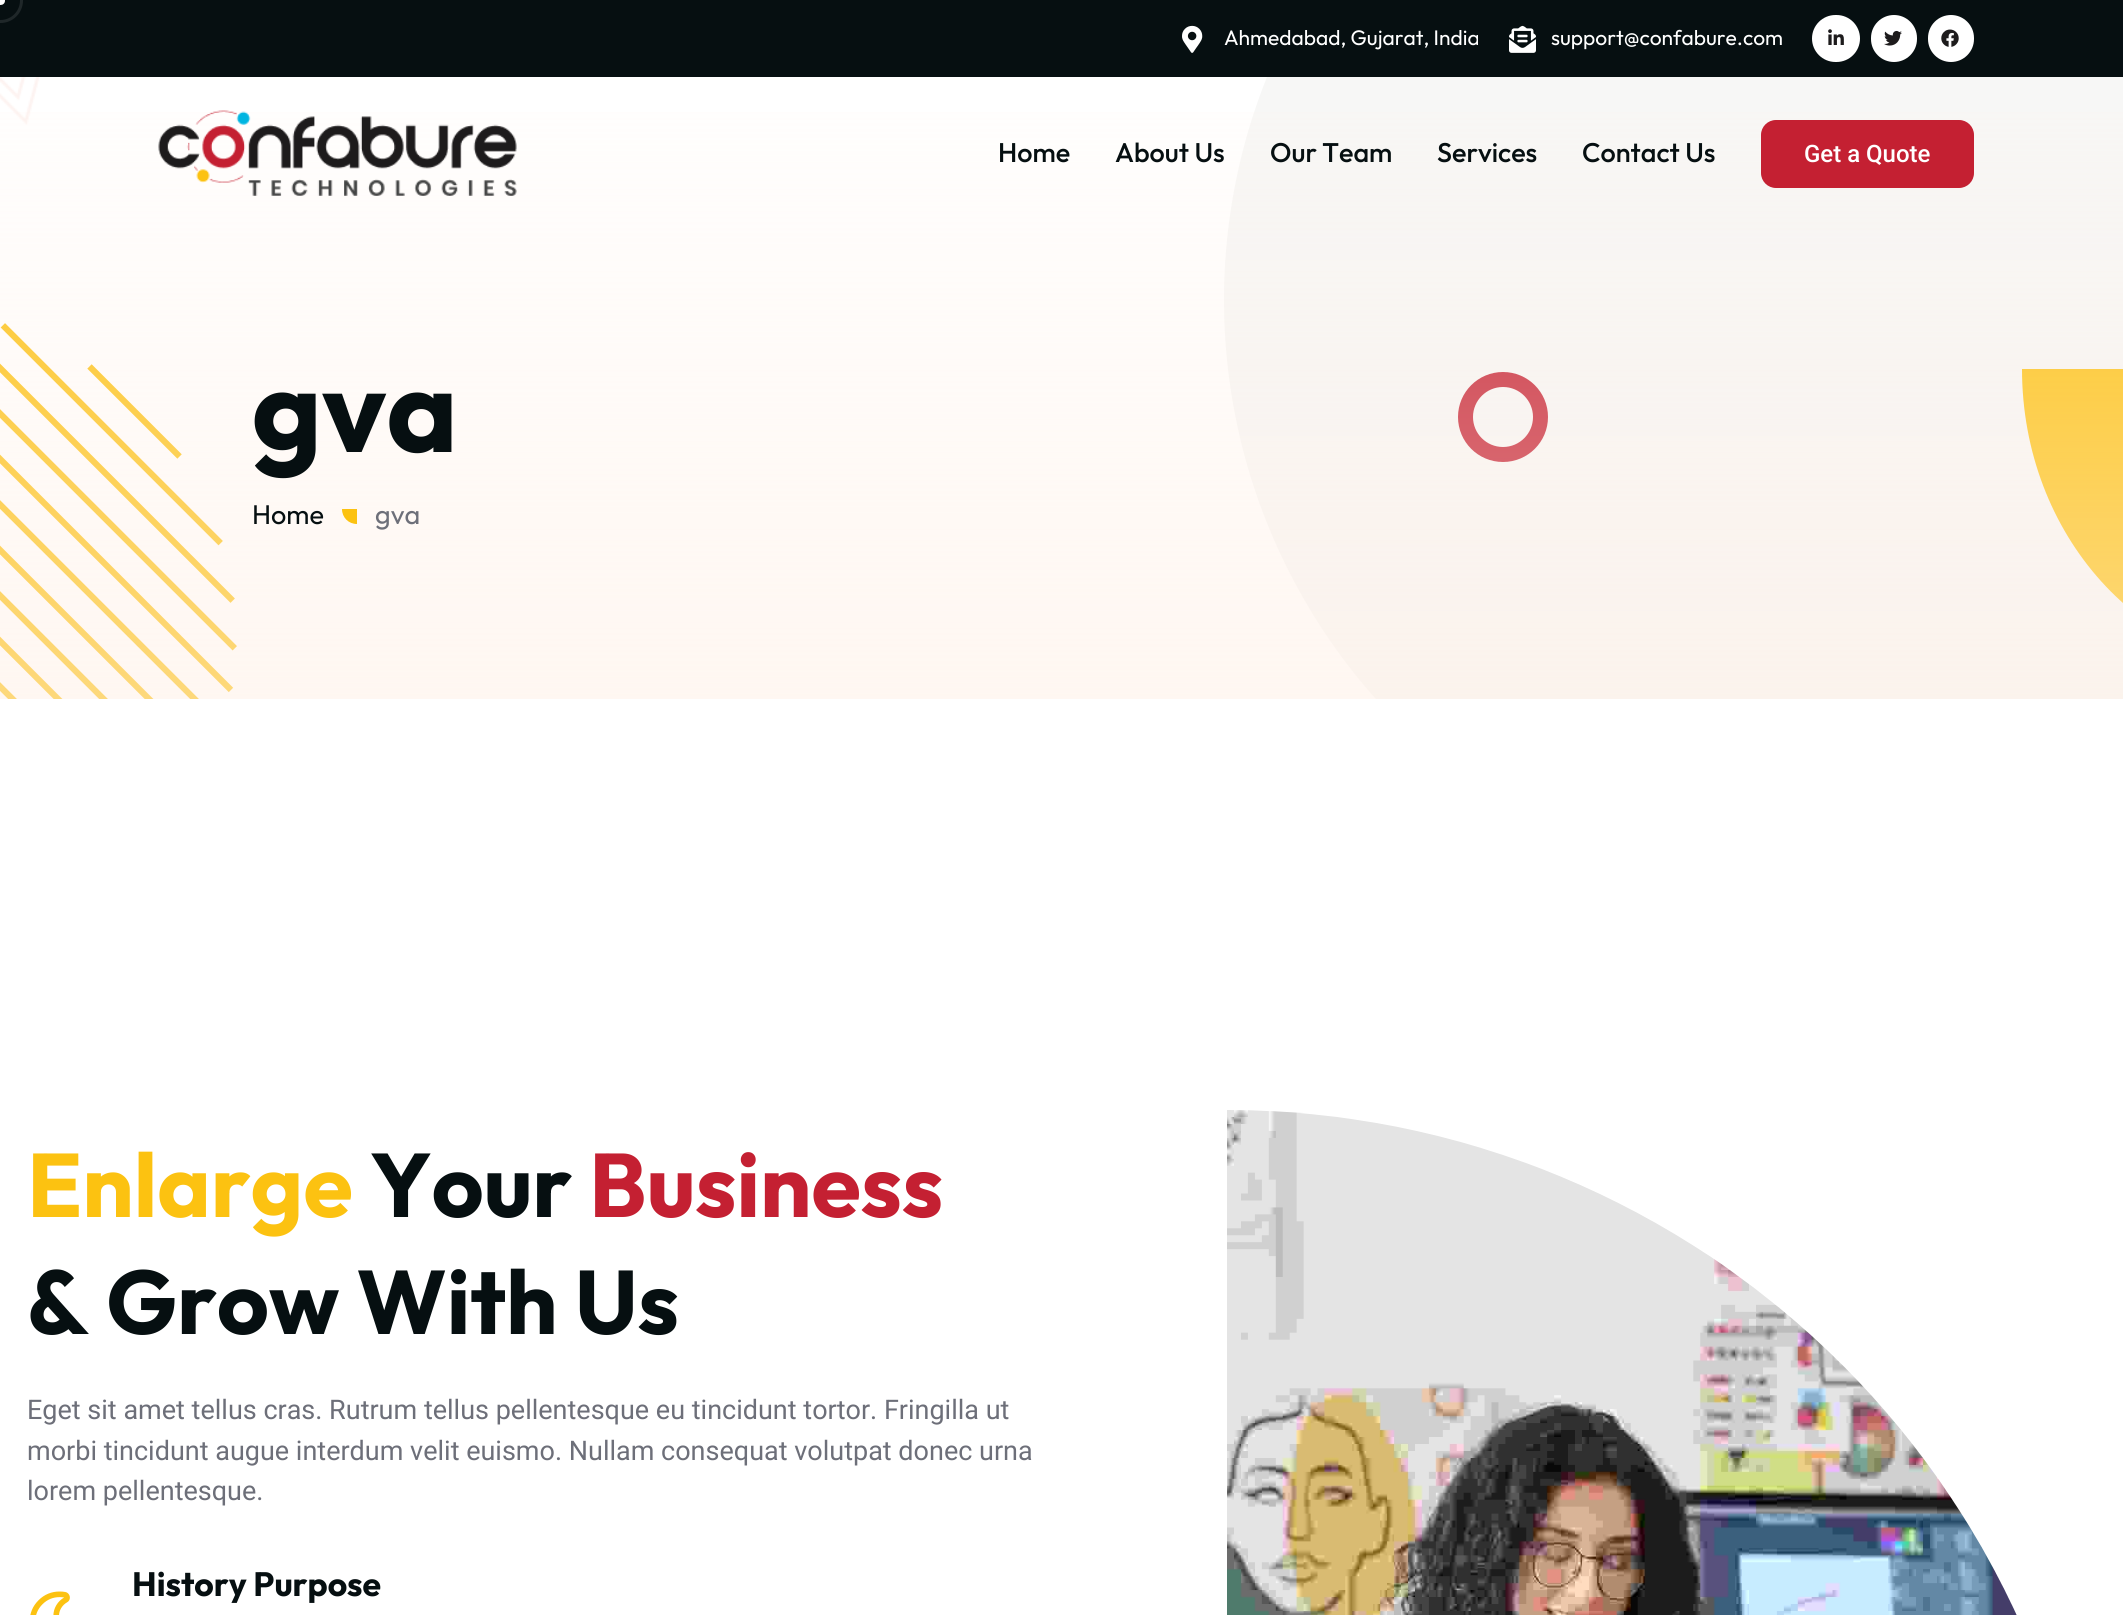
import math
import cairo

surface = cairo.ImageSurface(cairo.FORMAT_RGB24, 2123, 1615)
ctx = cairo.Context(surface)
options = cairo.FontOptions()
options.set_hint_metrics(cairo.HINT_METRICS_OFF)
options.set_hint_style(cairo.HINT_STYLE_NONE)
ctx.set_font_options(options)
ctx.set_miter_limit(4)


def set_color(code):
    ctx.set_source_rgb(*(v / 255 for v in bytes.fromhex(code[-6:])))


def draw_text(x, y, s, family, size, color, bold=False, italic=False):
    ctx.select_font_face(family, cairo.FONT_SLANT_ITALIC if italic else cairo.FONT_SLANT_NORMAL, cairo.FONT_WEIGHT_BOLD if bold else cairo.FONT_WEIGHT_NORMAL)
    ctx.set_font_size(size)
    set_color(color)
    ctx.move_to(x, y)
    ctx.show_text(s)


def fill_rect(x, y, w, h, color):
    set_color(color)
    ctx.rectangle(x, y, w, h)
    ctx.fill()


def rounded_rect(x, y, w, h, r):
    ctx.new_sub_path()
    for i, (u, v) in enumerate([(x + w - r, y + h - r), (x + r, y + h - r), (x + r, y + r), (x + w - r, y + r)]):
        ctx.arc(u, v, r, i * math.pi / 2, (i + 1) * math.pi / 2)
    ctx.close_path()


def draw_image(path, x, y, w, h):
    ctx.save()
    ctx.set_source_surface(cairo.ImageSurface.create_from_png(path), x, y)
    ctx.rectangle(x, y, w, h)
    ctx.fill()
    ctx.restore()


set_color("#ffffff")
ctx.paint()
ctx.save()
ctx.rectangle(0, 0, 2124, 699)
ctx.clip()
set_color("#f7f7f6")
ctx.arc(1824, 300, 600, 0, 2 * math.pi)
ctx.fill()
ctx.restore()
fill_rect(0, 0, 2123, 77, "#060f11")
ctx.arc(0.5, 0.5, 21, 0, 2 * math.pi)
set_color("#1f2729")
ctx.set_line_width(3)
ctx.stroke()
set_color("#ffffff")
ctx.arc(0.5, 0.5, 4.5, 0, 2 * math.pi)
ctx.fill()
draw_image("assets/img1.png", 1182, 25, 21, 28)
draw_text(1224, 45, "Ahmedabad, Gujarat, India", "Outfit", 21, "#ffffff")
draw_image("assets/img2.png", 1509, 25, 27, 28)
draw_text(1551, 45, "support@confabure.com", "Outfit", 21, "#ffffff")
rounded_rect(1812, 15, 48, 47, 23.5)
ctx.fill()
draw_image("assets/img3.png", 1828, 29, 16, 16)
rounded_rect(1871, 15, 46, 47, 23)
ctx.fill()
draw_image("assets/img4.png", 1884, 30, 18, 16)
rounded_rect(1928, 15, 46, 47, 23)
ctx.fill()
draw_image("assets/img5.png", 1941, 29, 18, 18)
draw_image("assets/img7.png", 0, 77, 40, 48)
draw_image("assets/img8.png", 0, 323, 237, 376)
ctx.arc(1503, 417, 37.5, 0, 2 * math.pi)
set_color("#c42032")
ctx.set_line_width(15)
ctx.stroke()
set_color("#fcc211")
ctx.new_path()
ctx.move_to(2022, 369)
ctx.line_to(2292, 369)
ctx.line_to(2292, 669)
ctx.curve_to(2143, 669, 2022, 535, 2022, 369)
ctx.close_path()
ctx.fill()
gradient = cairo.LinearGradient(1062, 0, 1062, 699)
gradient.add_color_stop_rgba(0, 1, 0.937, 0.894, 0)
gradient.add_color_stop_rgba(1, 1, 0.937, 0.894, 0.5)
ctx.set_source(gradient)
ctx.rectangle(0, 112, 2123, 587)
ctx.fill()
draw_image("assets/img6.png", 158, 110, 359, 86)
draw_text(998, 162, "Home", "Outfit Medium", 27, "#060f11")
draw_text(1115, 162, "About Us", "Outfit Medium", 27, "#060f11")
draw_text(1270, 162, "Our Team", "Outfit Medium", 27, "#060f11")
draw_text(1437, 162, "Services", "Outfit Medium", 27, "#060f11")
draw_text(1582, 162, "Contact Us", "Outfit Medium", 27, "#060f11")
set_color("#c42032")
rounded_rect(1761, 120, 213, 68, 15)
ctx.fill()
draw_text(1804, 162, "Get a Quote", "Roboto Medium", 24, "#ffffff")
draw_text(252, 452, "gva", "Outfit", 120, "#060f11", bold=True)
draw_text(252, 524, "Home", "Outfit", 27, "#060f11")
set_color("#fcc211")
ctx.new_path()
ctx.move_to(342, 509)
ctx.line_to(357, 509)
ctx.line_to(357, 524)
ctx.curve_to(348.5, 524, 342, 517.5, 342, 509)
ctx.close_path()
ctx.fill()
draw_text(375, 524, "gva", "Outfit", 27, "#6d6f79")
draw_text(27, 1217, "Enlarge", "Outfit", 90, "#fcc211", bold=True)
draw_text(370, 1217, "Your", "Outfit", 90, "#060f11", bold=True)
draw_text(589, 1217, "Business", "Outfit", 90, "#c42032", bold=True)
draw_text(27, 1334, "& Grow With Us", "Outfit", 90, "#060f11", bold=True)
draw_text(27, 1419, "Eget sit amet tellus cras. Rutrum tellus pellentesque eu tincidunt tortor. Fringilla ut", "Roboto", 27, "#6d6f79")
draw_text(27, 1460, "morbi tincidunt augue interdum velit euismo. Nullam consequat volutpat donec urna", "Roboto", 27, "#6d6f79")
draw_text(27, 1500, "lorem pellentesque.", "Roboto", 27, "#6d6f79")
draw_image("assets/img9.png", 30, 1591, 40, 24)
draw_text(132, 1596, "History Purpose", "Outfit", 33.75, "#060f11", bold=True)
draw_image("assets/img10.png", 1227, 1110, 790, 505)
surface.write_to_png("output.png")
